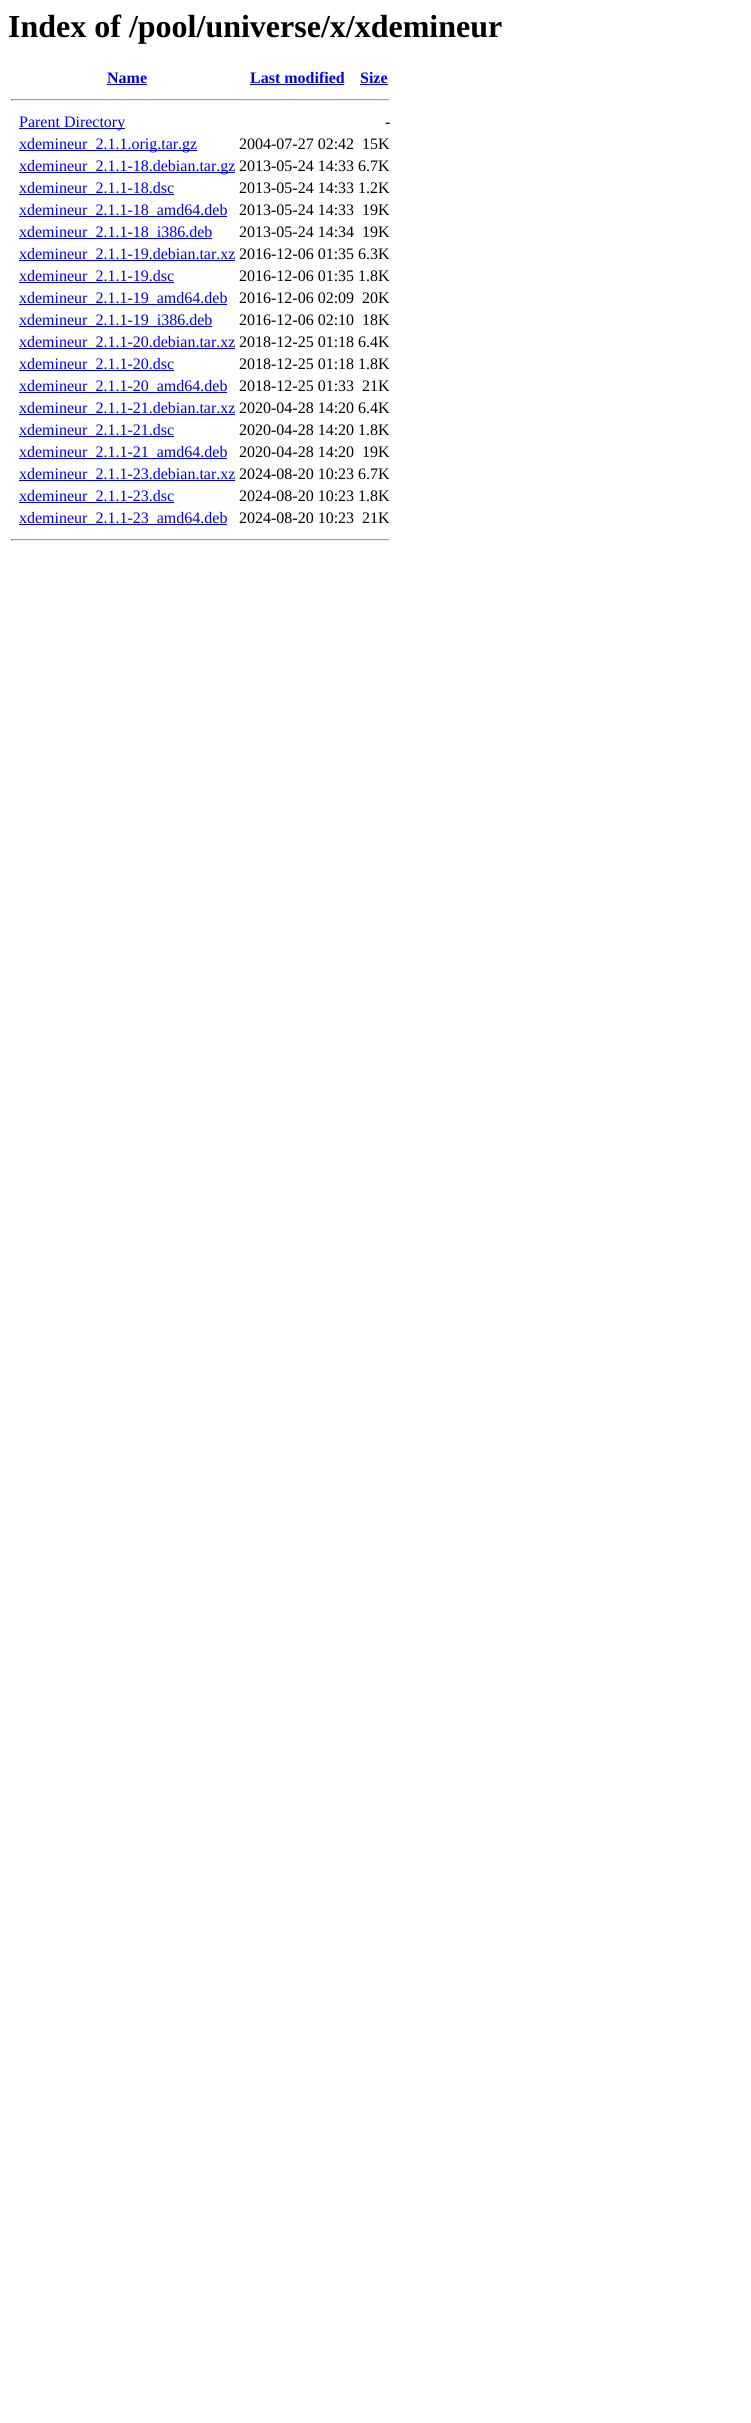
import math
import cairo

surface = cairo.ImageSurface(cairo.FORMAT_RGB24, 751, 2423)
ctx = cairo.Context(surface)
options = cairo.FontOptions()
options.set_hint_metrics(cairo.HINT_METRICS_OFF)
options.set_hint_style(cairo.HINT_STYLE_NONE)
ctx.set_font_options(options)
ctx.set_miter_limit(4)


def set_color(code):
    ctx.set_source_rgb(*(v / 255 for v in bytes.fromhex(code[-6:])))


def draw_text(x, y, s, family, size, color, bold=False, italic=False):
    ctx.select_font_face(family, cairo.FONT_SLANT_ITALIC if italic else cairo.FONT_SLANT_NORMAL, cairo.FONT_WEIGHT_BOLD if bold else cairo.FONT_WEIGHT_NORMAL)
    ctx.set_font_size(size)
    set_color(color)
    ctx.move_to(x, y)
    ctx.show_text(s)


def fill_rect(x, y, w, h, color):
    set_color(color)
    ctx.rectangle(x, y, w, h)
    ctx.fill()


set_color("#ffffff")
ctx.paint()
draw_text(8, 37, "Index of /pool/universe/x/xdemineur", "Liberation Serif", 32, "#000000", bold=True)
draw_text(107, 83, "Name", "Liberation Serif", 16, "#0000ee", bold=True)
fill_rect(107, 84, 40, 1, "#0000ee")
draw_text(250, 83, "Last modified", "Liberation Serif", 16, "#0000ee", bold=True)
fill_rect(250, 84, 94, 1, "#0000ee")
draw_text(360, 83, "Size", "Liberation Serif", 16, "#0000ee", bold=True)
fill_rect(360, 84, 28, 1, "#0000ee")
fill_rect(11, 99, 379, 1, "#9f9f9f")
fill_rect(389, 99, 1, 2, "#eeeeee")
fill_rect(11, 100, 379, 1, "#eeeeee")
fill_rect(11, 99, 1, 2, "#9f9f9f")
fill_rect(19, 128, 106, 1, "#0000ee")
draw_text(19, 127, "Parent Directory", "Liberation Serif", 16, "#0000ee")
draw_text(385, 127, "-", "Liberation Serif", 16, "#000000")
fill_rect(19, 150, 178, 1, "#0000ee")
draw_text(19, 149, "xdemineur_2.1.1.orig.tar.gz", "Liberation Serif", 16, "#0000ee")
draw_text(239, 149, "2004-07-27 02:42", "Liberation Serif", 16, "#000000")
draw_text(362, 149, "15K", "Liberation Serif", 16, "#000000")
fill_rect(19, 172, 216, 1, "#0000ee")
draw_text(19, 171, "xdemineur_2.1.1-18.debian.tar.gz", "Liberation Serif", 16, "#0000ee")
draw_text(239, 171, "2013-05-24 14:33 6.7K", "Liberation Serif", 16, "#000000")
fill_rect(19, 194, 155, 1, "#0000ee")
draw_text(19, 193, "xdemineur_2.1.1-18.dsc", "Liberation Serif", 16, "#0000ee")
draw_text(239, 193, "2013-05-24 14:33 1.2K", "Liberation Serif", 16, "#000000")
fill_rect(19, 216, 208, 1, "#0000ee")
draw_text(19, 215, "xdemineur_2.1.1-18_amd64.deb", "Liberation Serif", 16, "#0000ee")
draw_text(239, 215, "2013-05-24 14:33", "Liberation Serif", 16, "#000000")
draw_text(362, 215, "19K", "Liberation Serif", 16, "#000000")
fill_rect(19, 238, 193, 1, "#0000ee")
draw_text(19, 237, "xdemineur_2.1.1-18_i386.deb", "Liberation Serif", 16, "#0000ee")
draw_text(239, 237, "2013-05-24 14:34", "Liberation Serif", 16, "#000000")
draw_text(362, 237, "19K", "Liberation Serif", 16, "#000000")
fill_rect(19, 260, 216, 1, "#0000ee")
draw_text(19, 259, "xdemineur_2.1.1-19.debian.tar.xz", "Liberation Serif", 16, "#0000ee")
draw_text(239, 259, "2016-12-06 01:35 6.3K", "Liberation Serif", 16, "#000000")
fill_rect(19, 282, 155, 1, "#0000ee")
draw_text(19, 281, "xdemineur_2.1.1-19.dsc", "Liberation Serif", 16, "#0000ee")
draw_text(239, 281, "2016-12-06 01:35 1.8K", "Liberation Serif", 16, "#000000")
fill_rect(19, 304, 208, 1, "#0000ee")
draw_text(19, 303, "xdemineur_2.1.1-19_amd64.deb", "Liberation Serif", 16, "#0000ee")
draw_text(239, 303, "2016-12-06 02:09", "Liberation Serif", 16, "#000000")
draw_text(362, 303, "20K", "Liberation Serif", 16, "#000000")
fill_rect(19, 326, 193, 1, "#0000ee")
draw_text(19, 325, "xdemineur_2.1.1-19_i386.deb", "Liberation Serif", 16, "#0000ee")
draw_text(239, 325, "2016-12-06 02:10", "Liberation Serif", 16, "#000000")
draw_text(362, 325, "18K", "Liberation Serif", 16, "#000000")
fill_rect(19, 348, 216, 1, "#0000ee")
draw_text(19, 347, "xdemineur_2.1.1-20.debian.tar.xz", "Liberation Serif", 16, "#0000ee")
draw_text(239, 347, "2018-12-25 01:18 6.4K", "Liberation Serif", 16, "#000000")
fill_rect(19, 370, 155, 1, "#0000ee")
draw_text(19, 369, "xdemineur_2.1.1-20.dsc", "Liberation Serif", 16, "#0000ee")
draw_text(239, 369, "2018-12-25 01:18 1.8K", "Liberation Serif", 16, "#000000")
fill_rect(19, 392, 208, 1, "#0000ee")
draw_text(19, 391, "xdemineur_2.1.1-20_amd64.deb", "Liberation Serif", 16, "#0000ee")
draw_text(239, 391, "2018-12-25 01:33", "Liberation Serif", 16, "#000000")
draw_text(362, 391, "21K", "Liberation Serif", 16, "#000000")
fill_rect(19, 414, 216, 1, "#0000ee")
draw_text(19, 413, "xdemineur_2.1.1-21.debian.tar.xz", "Liberation Serif", 16, "#0000ee")
draw_text(239, 413, "2020-04-28 14:20 6.4K", "Liberation Serif", 16, "#000000")
fill_rect(19, 436, 155, 1, "#0000ee")
draw_text(19, 435, "xdemineur_2.1.1-21.dsc", "Liberation Serif", 16, "#0000ee")
draw_text(239, 435, "2020-04-28 14:20 1.8K", "Liberation Serif", 16, "#000000")
fill_rect(19, 458, 208, 1, "#0000ee")
draw_text(19, 457, "xdemineur_2.1.1-21_amd64.deb", "Liberation Serif", 16, "#0000ee")
draw_text(239, 457, "2020-04-28 14:20", "Liberation Serif", 16, "#000000")
draw_text(362, 457, "19K", "Liberation Serif", 16, "#000000")
fill_rect(19, 480, 216, 1, "#0000ee")
draw_text(19, 479, "xdemineur_2.1.1-23.debian.tar.xz", "Liberation Serif", 16, "#0000ee")
draw_text(239, 479, "2024-08-20 10:23 6.7K", "Liberation Serif", 16, "#000000")
fill_rect(19, 502, 155, 1, "#0000ee")
draw_text(19, 501, "xdemineur_2.1.1-23.dsc", "Liberation Serif", 16, "#0000ee")
draw_text(239, 501, "2024-08-20 10:23 1.8K", "Liberation Serif", 16, "#000000")
fill_rect(19, 524, 208, 1, "#0000ee")
draw_text(19, 523, "xdemineur_2.1.1-23_amd64.deb", "Liberation Serif", 16, "#0000ee")
draw_text(239, 523, "2024-08-20 10:23", "Liberation Serif", 16, "#000000")
draw_text(362, 523, "21K", "Liberation Serif", 16, "#000000")
fill_rect(11, 539, 379, 1, "#9f9f9f")
fill_rect(389, 539, 1, 2, "#eeeeee")
fill_rect(11, 540, 379, 1, "#eeeeee")
fill_rect(11, 539, 1, 2, "#9f9f9f")
surface.write_to_png("output.png")
